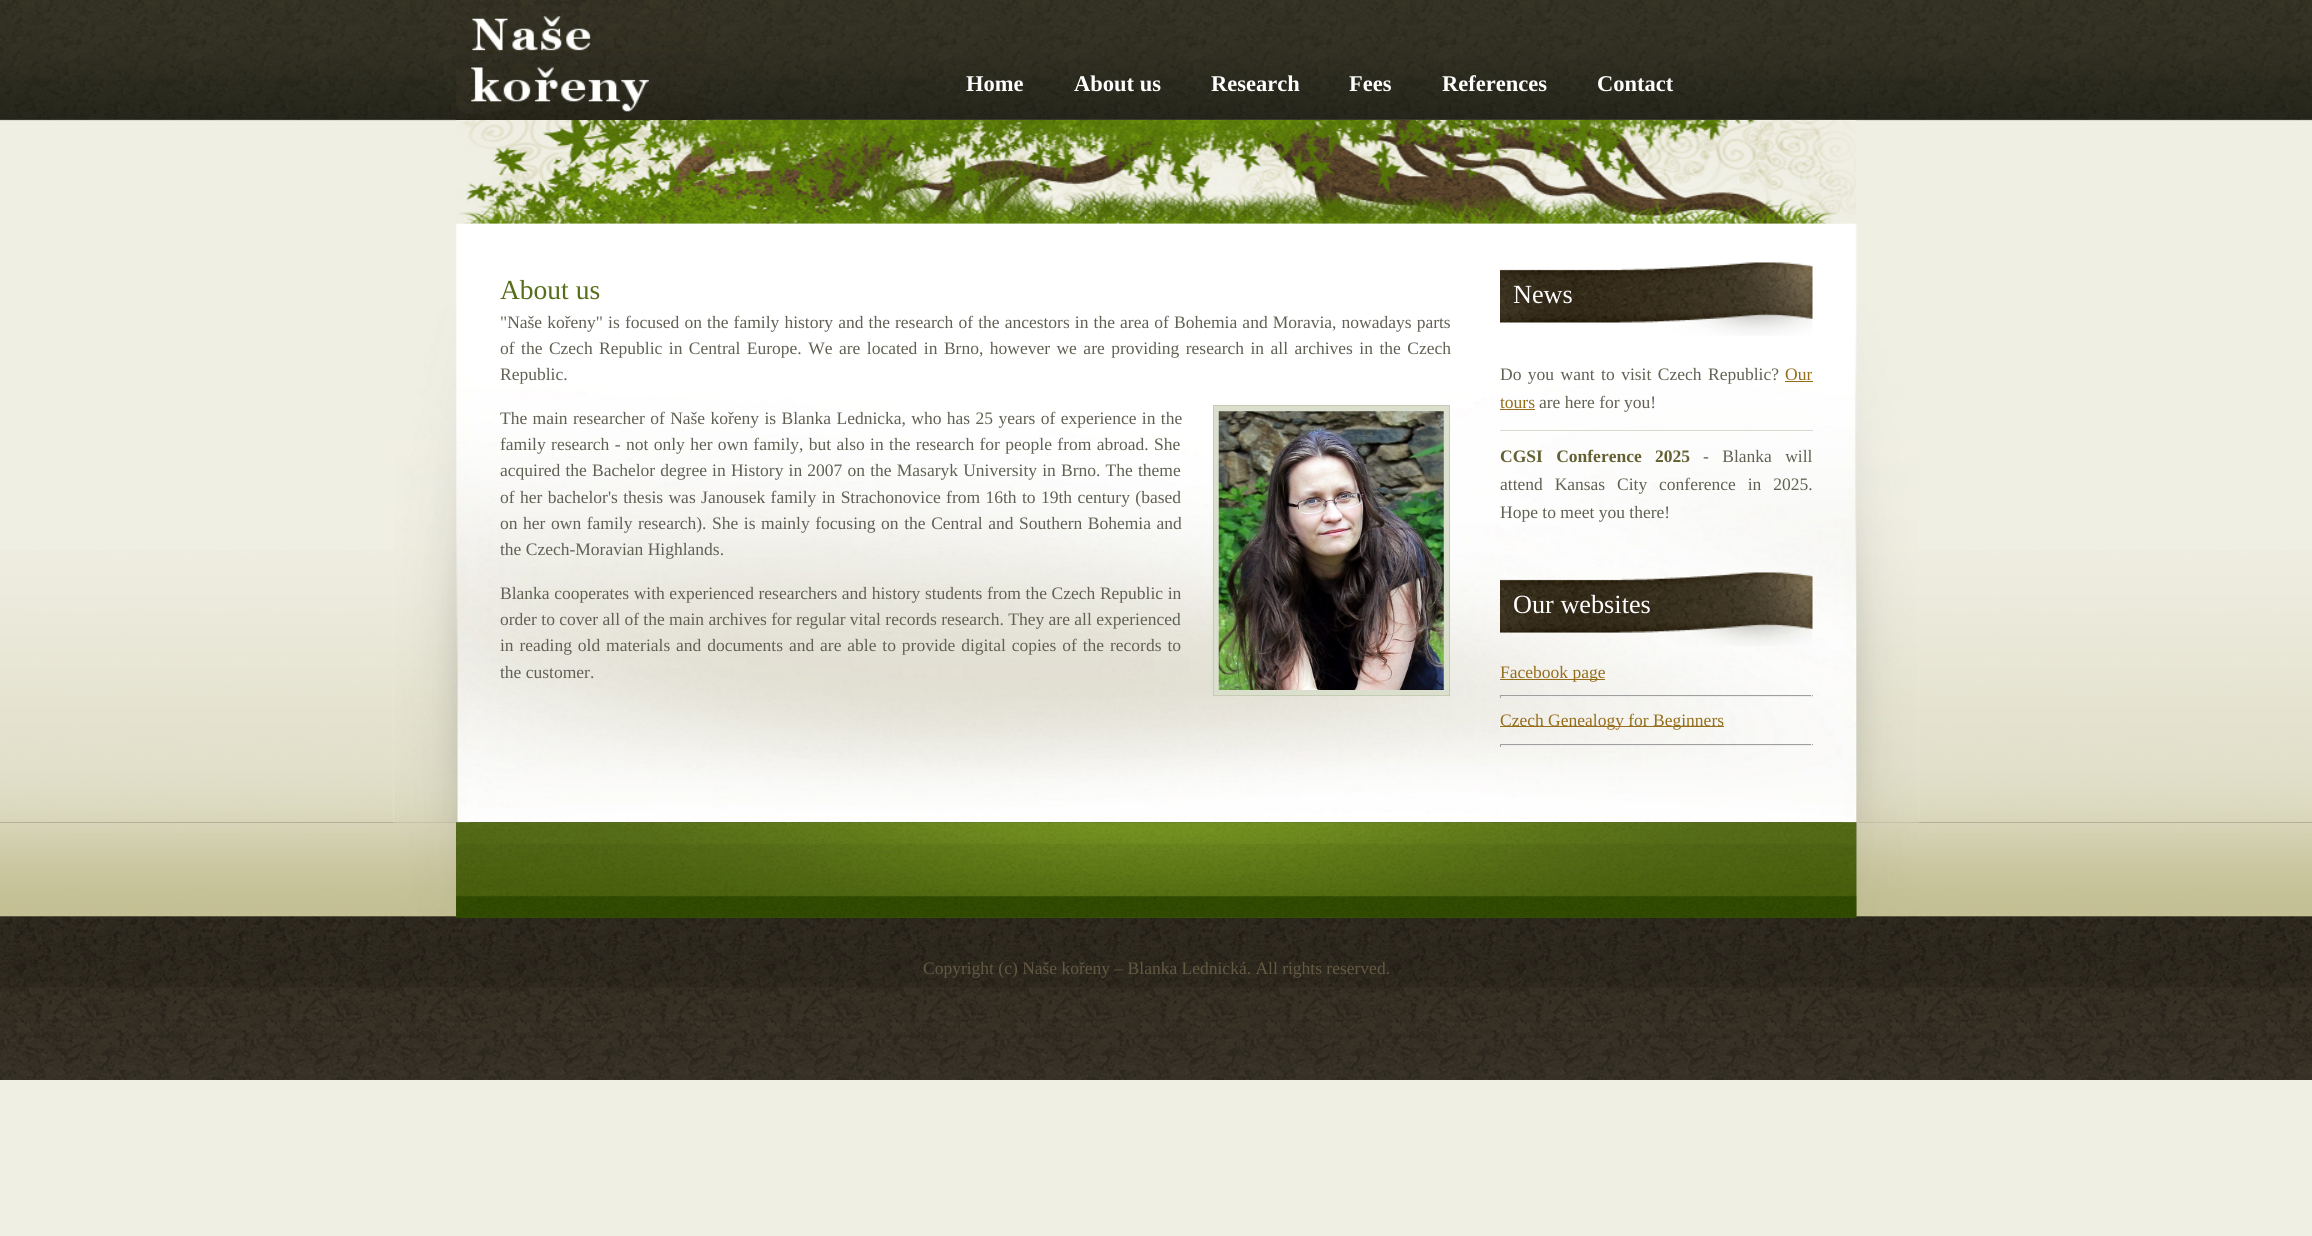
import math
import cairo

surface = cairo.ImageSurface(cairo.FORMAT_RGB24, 2312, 1236)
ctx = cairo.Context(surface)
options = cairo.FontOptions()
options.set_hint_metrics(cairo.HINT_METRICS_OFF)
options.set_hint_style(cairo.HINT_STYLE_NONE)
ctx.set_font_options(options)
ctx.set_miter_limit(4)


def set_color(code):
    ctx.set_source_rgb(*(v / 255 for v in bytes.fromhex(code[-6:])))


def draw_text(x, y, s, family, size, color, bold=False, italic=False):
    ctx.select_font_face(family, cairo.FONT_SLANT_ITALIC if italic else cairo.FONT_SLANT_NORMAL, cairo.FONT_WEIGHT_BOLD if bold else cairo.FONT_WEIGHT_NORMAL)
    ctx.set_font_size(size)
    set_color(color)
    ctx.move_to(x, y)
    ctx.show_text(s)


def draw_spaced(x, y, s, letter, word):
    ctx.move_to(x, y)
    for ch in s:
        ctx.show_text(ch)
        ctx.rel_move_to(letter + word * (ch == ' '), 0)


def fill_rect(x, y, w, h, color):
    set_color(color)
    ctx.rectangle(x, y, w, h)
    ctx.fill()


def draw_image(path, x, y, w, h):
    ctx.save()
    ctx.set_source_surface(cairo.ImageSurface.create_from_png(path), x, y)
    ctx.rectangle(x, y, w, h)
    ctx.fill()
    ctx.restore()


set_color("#f0efe4")
ctx.paint()
draw_image("assets/img1.png", 0, 0, 2312, 121)
draw_image("assets/img2.png", 0, 550, 2312, 273)
draw_image("assets/img3.png", 456, 0, 251, 120)
draw_text(966, 91, "Home", "Liberation Serif", 22.5, "#ffffff", bold=True)
draw_text(1074, 91, "About us", "Liberation Serif", 22.5, "#ffffff", bold=True)
draw_text(1211, 91, "Research", "Liberation Serif", 22.5, "#ffffff", bold=True)
draw_text(1349, 91, "Fees", "Liberation Serif", 22.5, "#ffffff", bold=True)
draw_text(1442, 91, "References", "Liberation Serif", 22.5, "#ffffff", bold=True)
draw_text(1597, 91, "Contact", "Liberation Serif", 22.5, "#ffffff", bold=True)
draw_image("assets/img4.png", 456, 120, 1401, 104)
draw_image("assets/img5.png", 393, 223, 1526, 600)
draw_image("assets/img6.png", 394, 305, 1525, 518)
draw_text(500, 299, "About us", "Liberation Serif", 27.5, "#566d19")
ctx.set_font_size(17.5)
set_color("#616053")
draw_spaced(500, 328, "\"Naše kořeny\" is focused on the family history and the research of the ancestors in the area of Bohemia and Moravia, nowadays parts", 0, 0.75)
draw_spaced(500, 354, "of the Czech Republic in Central Europe. We are located in Brno, however we are providing research in all archives in the Czech", 0, 2.1)
draw_text(500, 380, "Republic.", "Liberation Serif", 17.5, "#616053")
draw_spaced(500, 424, "The main researcher of Naše kořeny is Blanka Lednicka, who has 25 years of experience in the", 0, 1)
set_color("#dadfce")
ctx.rectangle(1213.5, 405.5, 236, 290)
ctx.fill_preserve()
set_color("#c5ccb3")
ctx.set_line_width(1)
ctx.stroke()
draw_image("assets/img7.png", 1218, 411, 226, 279)
set_color("#616053")
draw_spaced(500, 450, "family research - not only her own family, but also in the research for people from abroad. She", 0, 1)
draw_spaced(500, 476, "acquired the Bachelor degree in History in 2007 on the Masaryk University in Brno. The theme", 0, 0.8)
draw_spaced(500, 503, "of her bachelor's thesis was Janousek family in Strachonovice from 16th to 19th century (based", 0, 1)
draw_spaced(500, 529, "on her own family research). She is mainly focusing on the Central and Southern Bohemia and", 0, 1.2)
draw_text(500, 555, "the Czech-Moravian Highlands.", "Liberation Serif", 17.5, "#616053")
draw_spaced(500, 599, "Blanka cooperates with experienced researchers and history students from the Czech Republic in", 0, 0.25)
draw_text(500, 625, "order to cover all of the main archives for regular vital records research. They are all experienced", "Liberation Serif", 17.5, "#616053")
draw_spaced(500, 651, "in reading old materials and documents and are able to provide digital copies of the records to", 0, 1.5)
draw_text(500, 678, "the customer.", "Liberation Serif", 17.5, "#616053")
draw_image("assets/img8.png", 1500, 262, 313, 74)
draw_text(1513, 303, "News", "Liberation Serif", 26.25, "#ffffff")
fill_rect(1500, 430, 313, 1, "#d8dbca")
ctx.set_font_size(17.5)
set_color("#616053")
draw_spaced(1500, 380, "Do you want to visit Czech Republic?", 0, 2.1)
draw_text(1785, 380, "Our", "Liberation Serif", 17.5, "#956e1c")
fill_rect(1785, 381, 28, 1, "#956e1c")
draw_text(1500, 408, "tours", "Liberation Serif", 17.5, "#956e1c")
fill_rect(1500, 409, 35, 1, "#956e1c")
draw_text(1539, 408, "are here for you!", "Liberation Serif", 17.5, "#616053")
ctx.select_font_face("Liberation Serif", cairo.FONT_SLANT_NORMAL, cairo.FONT_WEIGHT_BOLD)
set_color("#646033")
draw_spaced(1500, 462, "CGSI Conference 2025", 0, 9)
ctx.select_font_face("Liberation Serif")
set_color("#616053")
draw_spaced(1703, 462, "- Blanka will", 0, 9)
draw_spaced(1500, 490, "attend Kansas City conference in 2025.", 0, 7.5)
draw_text(1500, 518, "Hope to meet you there!", "Liberation Serif", 17.5, "#616053")
draw_image("assets/img9.png", 1500, 572, 313, 74)
draw_text(1513, 613, "Our websites", "Liberation Serif", 26.25, "#ffffff")
fill_rect(1500, 679, 105, 1, "#956e1c")
draw_text(1500, 678, "Facebook page", "Liberation Serif", 17.5, "#956e1c")
fill_rect(1500, 695, 313, 1, "#9f9f9f")
fill_rect(1811, 695, 1, 3, "#eeeeee")
fill_rect(1500, 696, 313, 1, "#eeeeee")
fill_rect(1500, 695, 1, 3, "#9f9f9f")
fill_rect(1500, 726, 224, 1, "#956e1c")
draw_text(1500, 726, "Czech Genealogy for Beginners", "Liberation Serif", 17.5, "#956e1c")
fill_rect(1500, 744, 313, 1, "#9f9f9f")
fill_rect(1811, 744, 1, 3, "#eeeeee")
fill_rect(1500, 745, 313, 1, "#eeeeee")
fill_rect(1500, 744, 1, 3, "#9f9f9f")
draw_image("assets/img10.png", 0, 822, 2312, 1)
draw_image("assets/img11.png", 0, 822, 2312, 258)
draw_image("assets/img12.png", 393, 822, 1526, 96)
draw_image("assets/img13.png", 456, 822, 1401, 96)
draw_image("assets/img14.png", 456, 822, 1401, 96)
draw_image("assets/img15.png", 456, 896, 1401, 22)
draw_text(923, 974, "Copyright (c) Naše kořeny – Blanka Lednická. All rights reserved.", "Liberation Serif", 17.5, "#635842")
surface.write_to_png("output.png")
